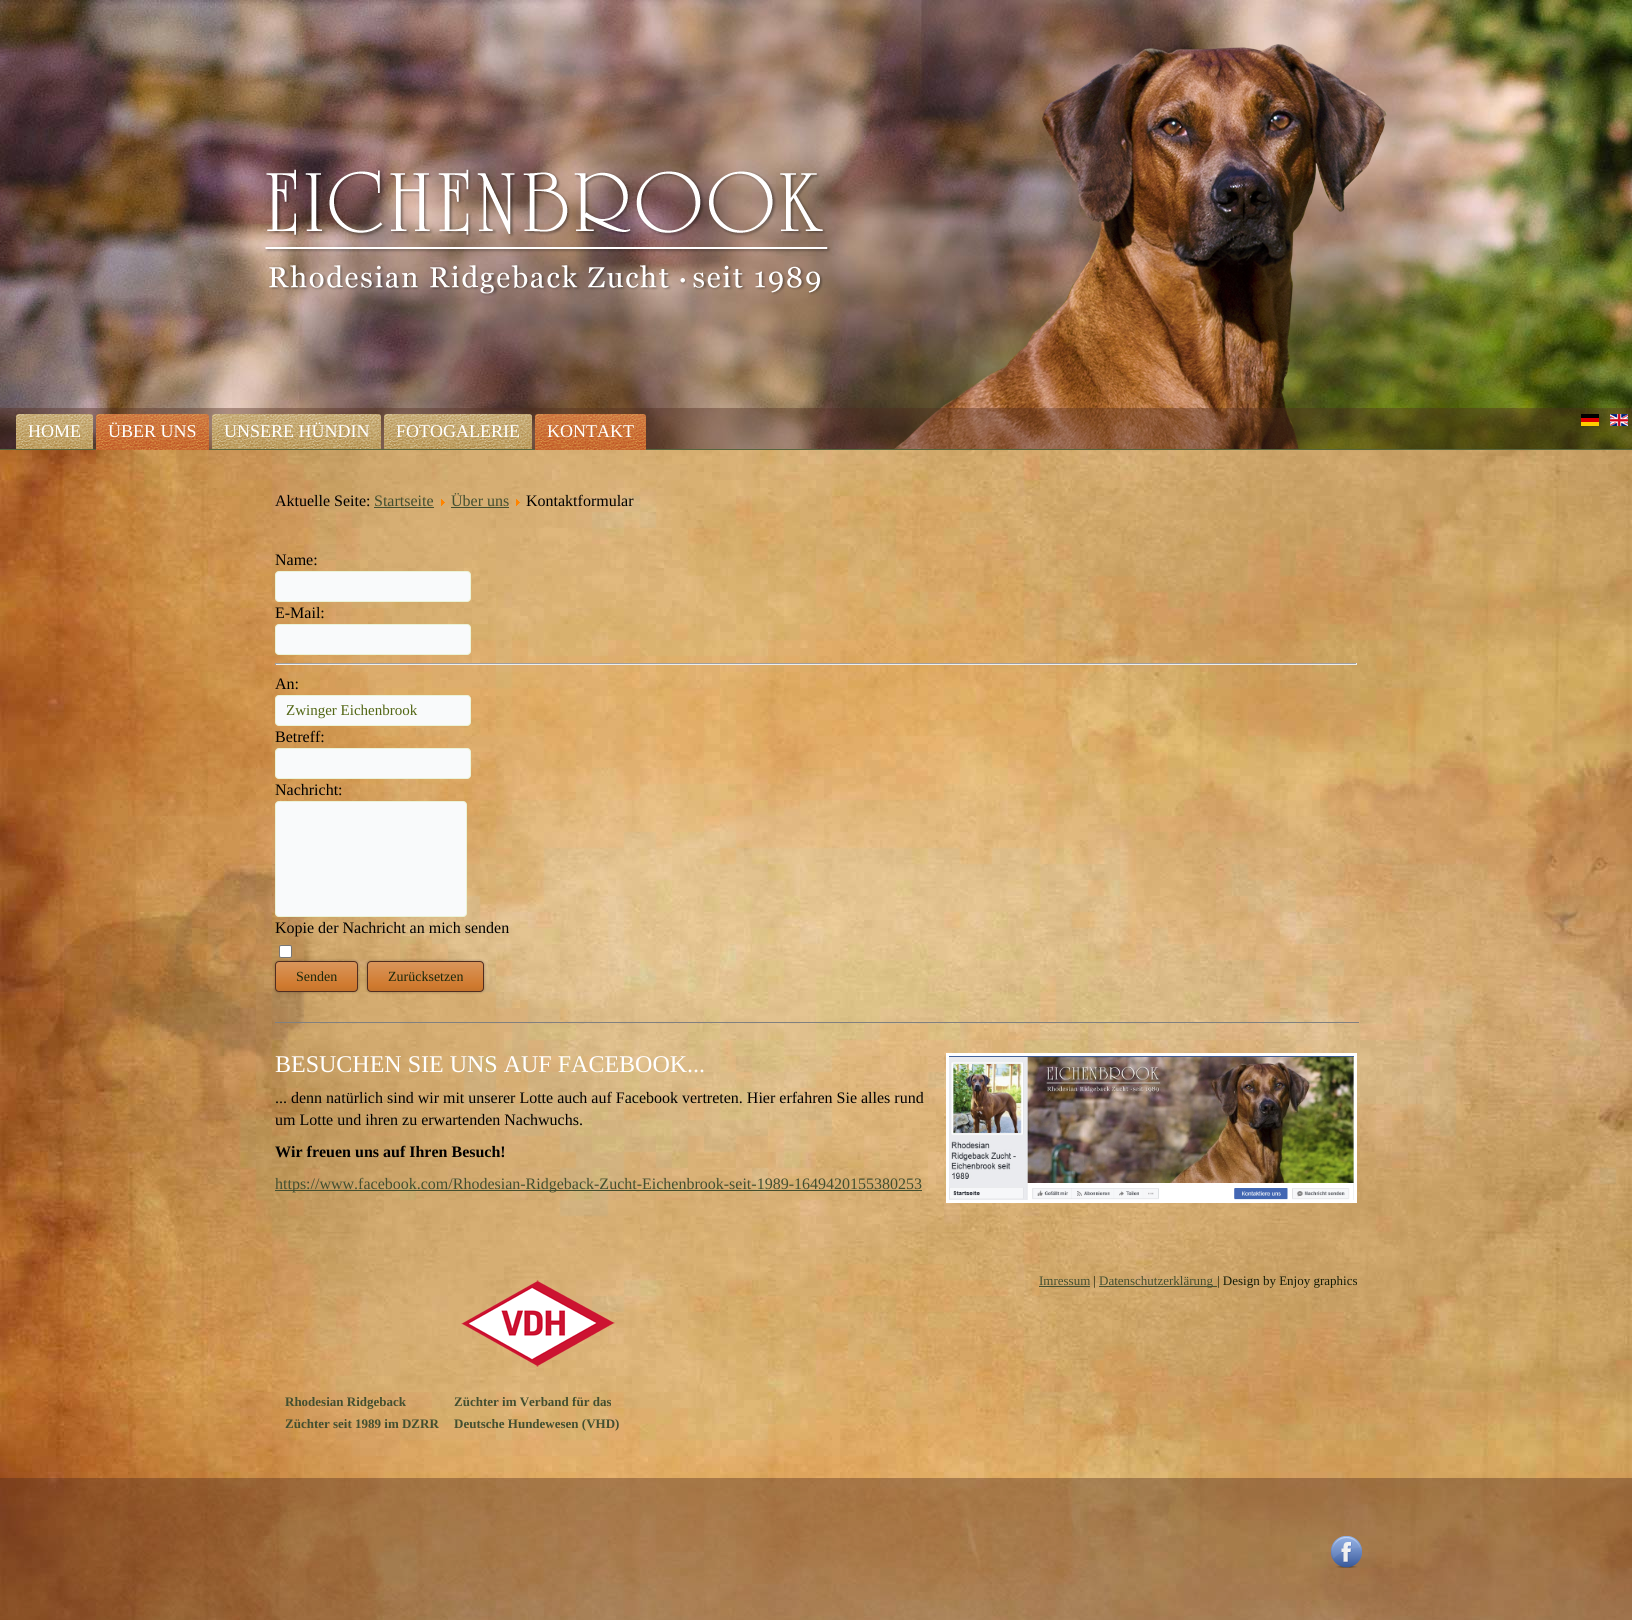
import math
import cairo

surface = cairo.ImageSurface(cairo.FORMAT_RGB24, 1632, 1620)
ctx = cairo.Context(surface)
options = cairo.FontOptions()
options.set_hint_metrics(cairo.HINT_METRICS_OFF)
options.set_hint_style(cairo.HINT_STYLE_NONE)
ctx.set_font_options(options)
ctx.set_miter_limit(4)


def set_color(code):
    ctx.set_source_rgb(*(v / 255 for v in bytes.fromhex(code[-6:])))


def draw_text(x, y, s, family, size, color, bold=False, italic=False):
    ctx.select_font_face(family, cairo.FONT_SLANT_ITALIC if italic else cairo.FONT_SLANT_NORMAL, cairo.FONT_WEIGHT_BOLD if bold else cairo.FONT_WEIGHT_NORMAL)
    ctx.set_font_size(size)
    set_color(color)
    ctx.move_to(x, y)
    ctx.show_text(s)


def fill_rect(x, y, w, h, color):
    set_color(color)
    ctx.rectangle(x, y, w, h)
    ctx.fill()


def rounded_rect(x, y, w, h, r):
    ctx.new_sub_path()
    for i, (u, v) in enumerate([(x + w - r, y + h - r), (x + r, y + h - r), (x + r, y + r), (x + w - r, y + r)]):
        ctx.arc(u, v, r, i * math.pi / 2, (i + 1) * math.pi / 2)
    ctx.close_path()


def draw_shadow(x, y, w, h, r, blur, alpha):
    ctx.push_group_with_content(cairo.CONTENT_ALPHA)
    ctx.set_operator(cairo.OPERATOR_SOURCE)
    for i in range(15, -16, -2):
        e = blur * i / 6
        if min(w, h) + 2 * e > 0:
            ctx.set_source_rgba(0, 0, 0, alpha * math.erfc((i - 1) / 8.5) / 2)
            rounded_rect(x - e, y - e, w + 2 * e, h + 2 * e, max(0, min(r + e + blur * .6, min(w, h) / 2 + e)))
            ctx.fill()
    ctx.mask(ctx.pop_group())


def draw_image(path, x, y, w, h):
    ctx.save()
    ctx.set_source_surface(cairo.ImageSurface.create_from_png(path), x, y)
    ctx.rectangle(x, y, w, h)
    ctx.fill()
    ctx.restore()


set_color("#ffffff")
ctx.paint()
draw_image("assets/img1.png", 0, 450, 1632, 1170)
draw_image("assets/img2.png", 0, 0, 1632, 449)
draw_image("assets/img3.png", 265, 169, 566, 127)
draw_image("assets/img4.png", 894, 44, 493, 405)
ctx.set_source_rgba(0.314, 0.173, 0.125, 0.4)
ctx.rectangle(0, 408, 1632, 41)
ctx.fill()
fill_rect(0, 449, 1632, 1, "#56653e")
draw_image("assets/img5.png", 1581, 414, 18, 12)
draw_image("assets/img6.png", 1610, 414, 18, 12)
draw_image("assets/img7.png", 16, 414, 77, 35)
draw_text(28, 437, "HOME", "Liberation Serif", 18, "#ffffff")
draw_image("assets/img8.png", 96, 414, 113, 36)
draw_text(108, 437, "ÜBER UNS", "Liberation Serif", 18, "#ffffff")
draw_image("assets/img9.png", 212, 414, 169, 35)
draw_text(224, 437, "UNSERE HÜNDIN", "Liberation Serif", 18, "#ffffff")
draw_image("assets/img10.png", 384, 414, 148, 35)
draw_text(396, 437, "FOTOGALERIE", "Liberation Serif", 18, "#ffffff")
draw_image("assets/img11.png", 535, 414, 111, 36)
draw_text(547, 437, "KONTAKT", "Liberation Serif", 18, "#ffffff")
draw_text(275, 506, "Aktuelle Seite:", "Liberation Serif", 16, "#000000")
draw_text(374, 506, "Startseite", "Liberation Serif", 16, "#434f30")
fill_rect(374, 507, 60, 1, "#434f30")
draw_image("assets/img12.png", 441, 499, 4, 7)
draw_text(451, 506, "Über uns", "Liberation Serif", 16, "#434f30")
fill_rect(451, 507, 58, 1, "#434f30")
draw_image("assets/img12.png", 516, 499, 4, 7)
draw_text(526, 506, "Kontaktformular", "Liberation Serif", 16, "#000000")
draw_text(275, 565, "Name:", "Liberation Serif", 16, "#000000")
set_color("#f9fafb")
rounded_rect(275, 571, 196, 31, 4)
ctx.fill()
rounded_rect(275.5, 571.5, 195, 30, 3.5)
ctx.set_source_rgba(0.722, 0.863, 0.298, 0.2)
ctx.set_line_width(1)
ctx.stroke()
draw_text(275, 618, "E-Mail:", "Liberation Serif", 16, "#000000")
set_color("#f9fafb")
rounded_rect(275, 624, 196, 31, 4)
ctx.fill()
rounded_rect(275.5, 624.5, 195, 30, 3.5)
ctx.set_source_rgba(0.722, 0.863, 0.298, 0.2)
ctx.stroke()
fill_rect(275, 663, 1082, 1, "#9f9f9f")
fill_rect(1356, 663, 1, 2, "#eeeeee")
fill_rect(275, 664, 1082, 1, "#eeeeee")
fill_rect(275, 663, 1, 2, "#9f9f9f")
draw_text(275, 689, "An:", "Liberation Serif", 16, "#000000")
set_color("#f9fafb")
rounded_rect(275, 695, 196, 31, 4)
ctx.fill()
rounded_rect(275.5, 695.5, 195, 30, 3.5)
ctx.set_source_rgba(0.722, 0.863, 0.298, 0.2)
ctx.stroke()
draw_text(286, 715, "Zwinger Eichenbrook", "Liberation Serif", 15, "#526614")
draw_text(275, 742, "Betreff:", "Liberation Serif", 16, "#000000")
set_color("#f9fafb")
rounded_rect(275, 748, 196, 31, 4)
ctx.fill()
rounded_rect(275.5, 748.5, 195, 30, 3.5)
ctx.set_source_rgba(0.722, 0.863, 0.298, 0.2)
ctx.stroke()
draw_text(275, 795, "Nachricht:", "Liberation Serif", 16, "#000000")
set_color("#f9fafb")
rounded_rect(275, 801, 192, 116, 4)
ctx.fill()
rounded_rect(275.5, 801.5, 191, 115, 3.5)
ctx.set_source_rgba(0.722, 0.863, 0.298, 0.2)
ctx.stroke()
draw_text(275, 933, "Kopie der Nachricht an mich senden", "Liberation Serif", 16, "#000000")
set_color("#ffffff")
rounded_rect(279.5, 945.5, 12, 12, 1.5)
ctx.fill_preserve()
set_color("#767676")
ctx.stroke()
set_color("#000000")
draw_shadow(274, 960, 85, 33, 5, 1, 0.15)
gradient = cairo.LinearGradient(317, 961, 317, 992)
gradient.add_color_stop_rgba(0, 0.855, 0.592, 0.365, 1)
gradient.add_color_stop_rgba(0.79, 0.816, 0.478, 0.184, 1)
gradient.add_color_stop_rgba(1, 0.765, 0.451, 0.173, 1)
ctx.set_source(gradient)
rounded_rect(275.5, 961.5, 82, 30, 3.5)
ctx.fill_preserve()
set_color("#502c20")
ctx.stroke()
draw_text(296, 981, "Senden", "Liberation Serif", 14, "#1c280b")
set_color("#000000")
draw_shadow(366, 960, 119, 33, 5, 1, 0.15)
gradient = cairo.LinearGradient(426, 961, 426, 992)
gradient.add_color_stop_rgba(0, 0.855, 0.592, 0.365, 1)
gradient.add_color_stop_rgba(0.79, 0.816, 0.478, 0.184, 1)
gradient.add_color_stop_rgba(1, 0.765, 0.451, 0.173, 1)
ctx.set_source(gradient)
rounded_rect(367.5, 961.5, 116, 30, 3.5)
ctx.fill_preserve()
set_color("#502c20")
ctx.stroke()
draw_text(388, 981, "Zurücksetzen", "Liberation Serif", 14, "#1c280b")
fill_rect(275, 1022, 1084, 1, "#808080")
draw_text(275, 1072, "BESUCHEN SIE UNS AUF FACEBOOK...", "Liberation Serif", 24, "#ffffff")
ctx.rectangle(947.5, 1054.5, 408, 147)
ctx.set_line_width(3)
ctx.stroke()
draw_image("assets/img13.png", 949, 1056, 405, 144)
draw_text(275, 1103, "... denn natürlich sind wir mit unserer Lotte auch auf Facebook vertreten. Hier erfahren Sie alles rund", "Liberation Serif", 16, "#000000")
draw_text(275, 1125, "um Lotte und ihren zu erwartenden Nachwuchs.", "Liberation Serif", 16, "#000000")
draw_text(275, 1157, "Wir freuen uns auf Ihren Besuch!", "Liberation Serif", 16, "#000000", bold=True)
fill_rect(275, 1190, 647, 1, "#434f30")
draw_text(275, 1189, "https://www.facebook.com/Rhodesian-Ridgeback-Zucht-Eichenbrook-seit-1989-1649420155380253", "Liberation Serif", 16, "#434f30")
draw_text(1039, 1285, "Imressum", "Liberation Serif", 13, "#434f30")
fill_rect(1039, 1286, 51, 1, "#434f30")
draw_text(1093, 1285, "|", "Liberation Serif", 13, "#141c07")
fill_rect(1099, 1286, 118, 1, "#434f30")
draw_text(1099, 1285, "Datenschutzerklärung", "Liberation Serif", 13, "#434f30")
draw_text(1217, 1285, "| Design by Enjoy graphics", "Liberation Serif", 13, "#141c07")
draw_image("assets/img14.png", 461, 1280, 154, 87)
draw_text(285, 1406, "Rhodesian Ridgeback", "Liberation Serif", 13, "#434f30", bold=True)
draw_text(285, 1428, "Züchter seit 1989 im DZRR", "Liberation Serif", 13, "#434f30", bold=True)
draw_text(454, 1406, "Züchter im Verband für das", "Liberation Serif", 13, "#434f30", bold=True)
draw_text(454, 1428, "Deutsche Hundewesen (VHD)", "Liberation Serif", 13, "#434f30", bold=True)
ctx.set_source_rgba(0.314, 0.173, 0.125, 0.4)
ctx.rectangle(0, 1478, 1632, 142)
ctx.fill()
draw_image("assets/img15.png", 1331, 1536, 31, 32)
surface.write_to_png("output.png")
